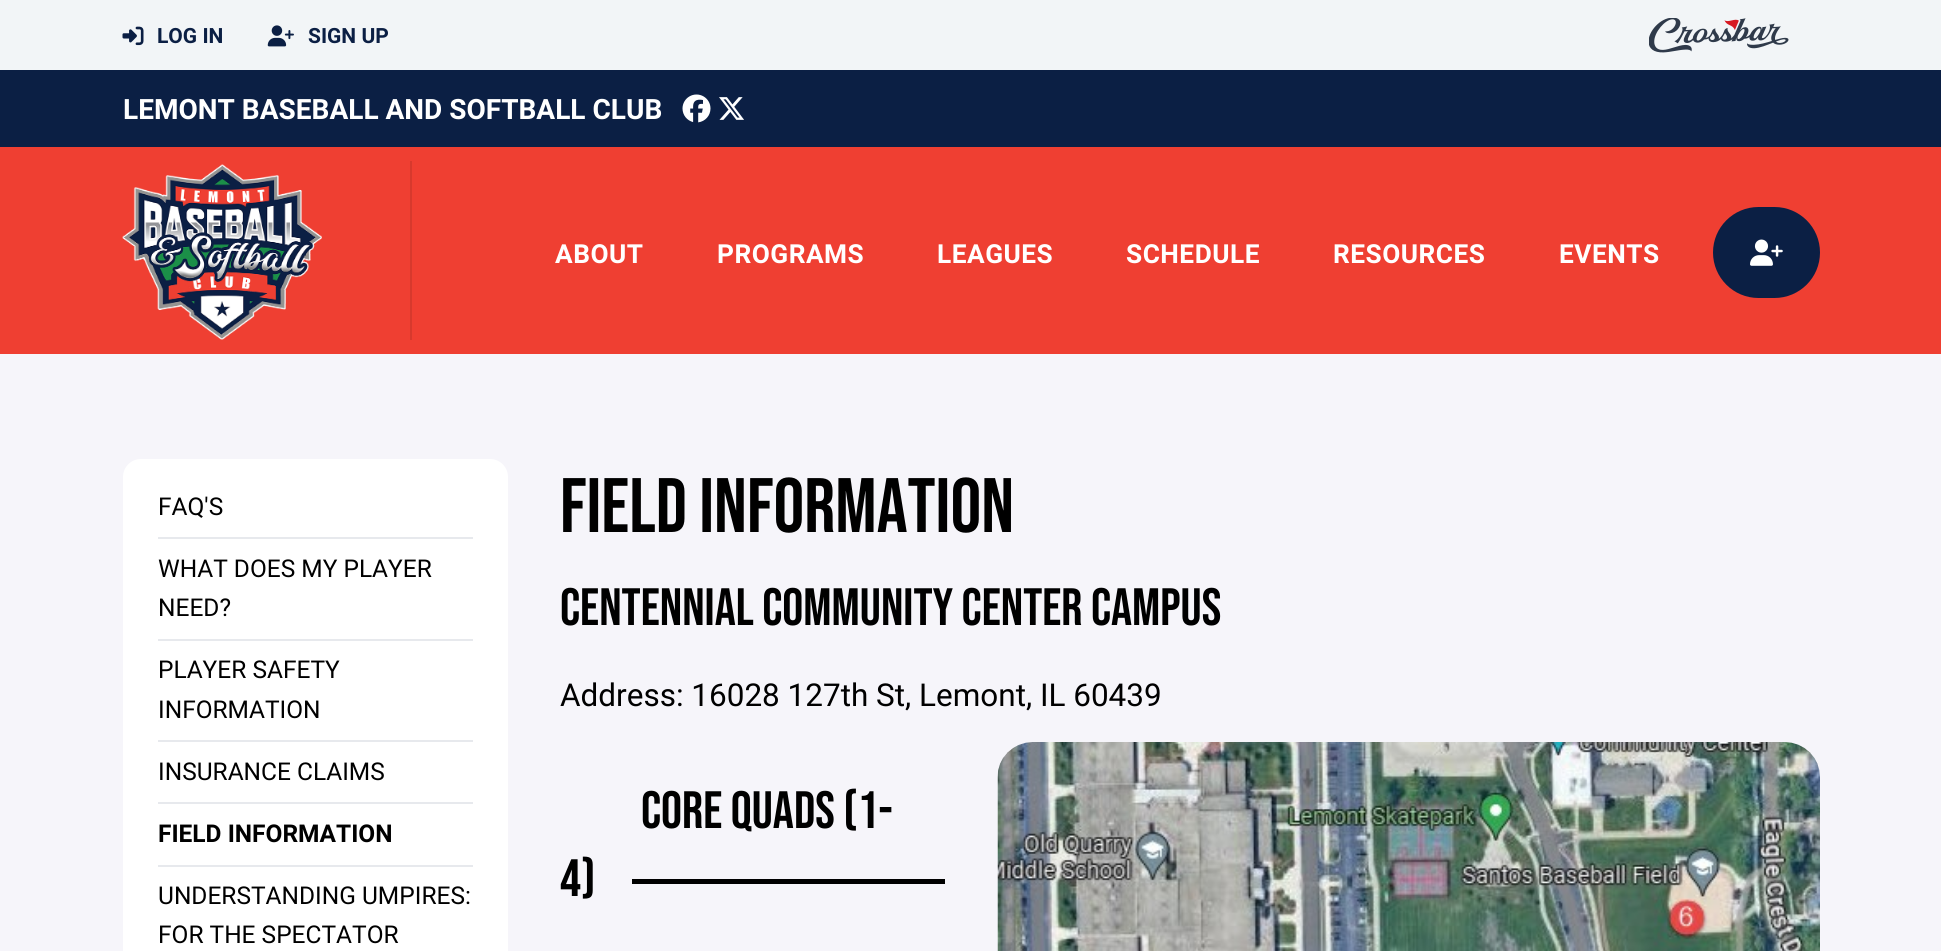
import math
import cairo

surface = cairo.ImageSurface(cairo.FORMAT_RGB24, 1941, 951)
ctx = cairo.Context(surface)
options = cairo.FontOptions()
options.set_hint_metrics(cairo.HINT_METRICS_OFF)
options.set_hint_style(cairo.HINT_STYLE_NONE)
ctx.set_font_options(options)
ctx.set_miter_limit(4)


def set_color(code):
    ctx.set_source_rgb(*(v / 255 for v in bytes.fromhex(code[-6:])))


def draw_text(x, y, s, family, size, color, bold=False, italic=False):
    ctx.select_font_face(family, cairo.FONT_SLANT_ITALIC if italic else cairo.FONT_SLANT_NORMAL, cairo.FONT_WEIGHT_BOLD if bold else cairo.FONT_WEIGHT_NORMAL)
    ctx.set_font_size(size)
    set_color(color)
    ctx.move_to(x, y)
    ctx.show_text(s)


def draw_spaced(x, y, s, letter, word):
    ctx.move_to(x, y)
    for ch in s:
        ctx.show_text(ch)
        ctx.rel_move_to(letter + word * (ch == ' '), 0)


def fill_rect(x, y, w, h, color):
    set_color(color)
    ctx.rectangle(x, y, w, h)
    ctx.fill()


def rounded_rect(x, y, w, h, r):
    ctx.new_sub_path()
    for i, (u, v) in enumerate([(x + w - r, y + h - r), (x + r, y + h - r), (x + r, y + r), (x + w - r, y + r)]):
        ctx.arc(u, v, r, i * math.pi / 2, (i + 1) * math.pi / 2)
    ctx.close_path()


def draw_image(path, x, y, w, h):
    ctx.save()
    ctx.set_source_surface(cairo.ImageSurface.create_from_png(path), x, y)
    ctx.rectangle(x, y, w, h)
    ctx.fill()
    ctx.restore()


set_color("#f2f5f7")
ctx.paint()
draw_image("assets/img1.png", 122, 26, 22, 20)
draw_text(157, 43, "LOG IN", "Roboto", 21, "#0b1f44", bold=True)
draw_image("assets/img2.png", 267, 25, 27, 22)
draw_text(308, 43, "SIGN UP", "Roboto", 21, "#0b1f44", bold=True)
draw_image("assets/img3.png", 1649, 18, 140, 35)
fill_rect(0, 70, 1941, 77, "#0b1f44")
draw_text(123, 119, "LEMONT BASEBALL AND SOFTBALL CLUB", "Roboto", 28, "#ffffff", bold=True)
draw_image("assets/img4.png", 682, 94, 29, 29)
draw_image("assets/img5.png", 719, 97, 25, 23)
fill_rect(0, 147, 1941, 207, "#ef3f32")
fill_rect(410, 161, 2, 179, "#d7392d")
draw_image("assets/img6.png", 122, 164, 200, 176)
ctx.set_font_size(26.25)
set_color("#ffffff")
draw_spaced(555, 263, "ABOUT", 0.5, 0)
draw_spaced(717, 263, "PROGRAMS", 0.5, 0)
draw_spaced(937, 263, "LEAGUES", 0.5, 0)
draw_spaced(1126, 263, "SCHEDULE", 0.5, 0)
draw_spaced(1333, 263, "RESOURCES", 0.5, 0)
draw_spaced(1559, 263, "EVENTS", 0.5, 0)
set_color("#0b1f44")
rounded_rect(1713, 207, 107, 91, 45.5)
ctx.fill()
draw_image("assets/img7.png", 1750, 239, 33, 27)
fill_rect(0, 354, 1941, 597, "#f6f5fa")
set_color("#ffffff")
rounded_rect(123, 459, 385, 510, 18)
ctx.fill()
draw_text(158, 515, "FAQ'S", "Roboto", 24.5, "#000000")
fill_rect(158, 537, 315, 2, "#e7e9ed")
draw_text(158, 577, "WHAT DOES MY PLAYER", "Roboto", 24.5, "#000000")
draw_text(158, 616, "NEED?", "Roboto", 24.5, "#000000")
fill_rect(158, 639, 315, 2, "#e7e9ed")
draw_text(158, 678, "PLAYER SAFETY", "Roboto", 24.5, "#000000")
draw_text(158, 718, "INFORMATION", "Roboto", 24.5, "#000000")
fill_rect(158, 740, 315, 2, "#e7e9ed")
draw_text(158, 780, "INSURANCE CLAIMS", "Roboto", 24.5, "#000000")
fill_rect(158, 802, 315, 2, "#e7e9ed")
draw_text(158, 842, "FIELD INFORMATION", "Roboto", 24.5, "#000000", bold=True)
fill_rect(158, 865, 315, 2, "#e7e9ed")
draw_text(158, 904, "UNDERSTANDING UMPIRES:", "Roboto", 24.5, "#000000")
draw_text(158, 943, "FOR THE SPECTATOR", "Roboto", 24.5, "#000000")
draw_text(560, 532, "FIELD INFORMATION", "Bebas Neue", 77, "#000000")
draw_text(560, 625, "CENTENNIAL COMMUNITY CENTER CAMPUS", "Bebas Neue", 52.5, "#000000")
draw_text(560, 706, "Address: 16028 127th St, Lemont, IL 60439", "Roboto", 31.5, "#000000")
fill_rect(632, 879, 313, 5, "#000000")
draw_text(641, 828, "CORE QUADS (1-", "Bebas Neue", 52.5, "#000000")
draw_text(560, 896, "4)", "Bebas Neue", 52.5, "#000000")
draw_image("assets/img8.png", 997, 742, 823, 209)
surface.write_to_png("output.png")
